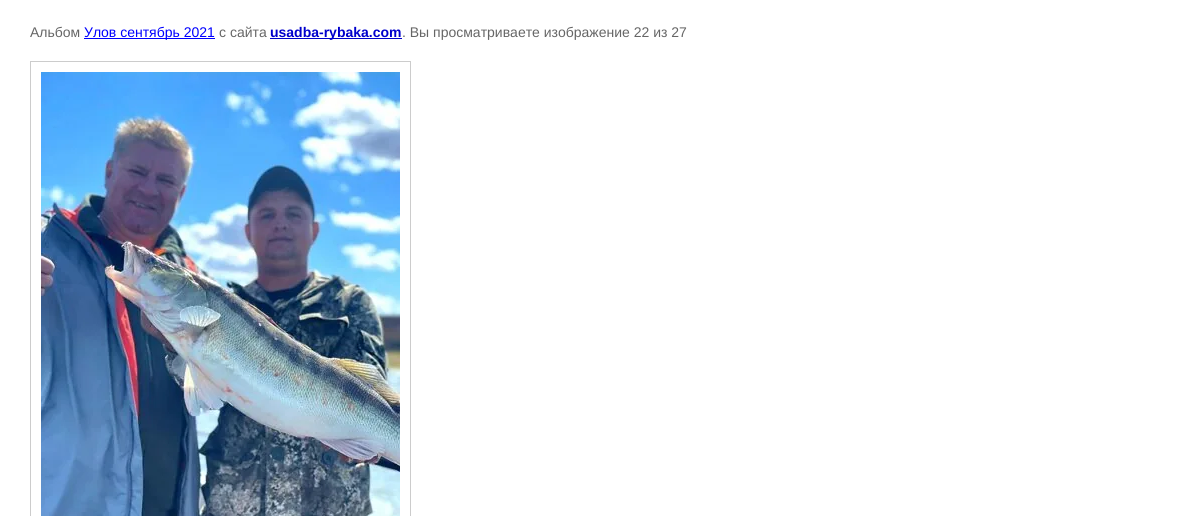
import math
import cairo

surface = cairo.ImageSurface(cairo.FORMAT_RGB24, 1200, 516)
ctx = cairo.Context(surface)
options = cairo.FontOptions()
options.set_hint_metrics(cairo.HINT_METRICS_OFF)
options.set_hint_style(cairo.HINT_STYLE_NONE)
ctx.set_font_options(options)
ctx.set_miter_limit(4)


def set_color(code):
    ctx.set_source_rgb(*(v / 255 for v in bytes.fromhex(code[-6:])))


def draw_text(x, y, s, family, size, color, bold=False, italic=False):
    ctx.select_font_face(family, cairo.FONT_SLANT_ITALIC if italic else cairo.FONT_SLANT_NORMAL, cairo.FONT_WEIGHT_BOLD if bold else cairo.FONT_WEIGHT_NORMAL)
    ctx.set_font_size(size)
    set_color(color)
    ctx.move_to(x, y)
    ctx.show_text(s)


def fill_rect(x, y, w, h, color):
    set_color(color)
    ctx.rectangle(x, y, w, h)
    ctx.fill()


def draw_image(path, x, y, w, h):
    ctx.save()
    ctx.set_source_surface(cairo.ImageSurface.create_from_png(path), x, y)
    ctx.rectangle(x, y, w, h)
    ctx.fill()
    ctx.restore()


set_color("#ffffff")
ctx.paint()
draw_text(30, 37, "Альбом", "Liberation Sans", 14, "#666666")
fill_rect(84, 38, 131, 1, "#0000ff")
draw_text(84, 37, "Улов сентябрь 2021", "Liberation Sans", 14, "#0000ff")
draw_text(219, 37, "с сайта", "Liberation Sans", 14, "#666666")
fill_rect(270, 38, 132, 1, "#0000cc")
draw_text(270, 37, "usadba-rybaka.com", "Liberation Sans", 14, "#0000cc", bold=True)
draw_text(402, 37, ". Вы просматриваете изображение 22 из 27", "Liberation Sans", 14, "#666666")
ctx.rectangle(30.5, 61.5, 380, 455)
set_color("#cccccc")
ctx.set_line_width(1)
ctx.stroke()
draw_image("assets/img1.png", 41, 72, 359, 444)
surface.write_to_png("output.png")
